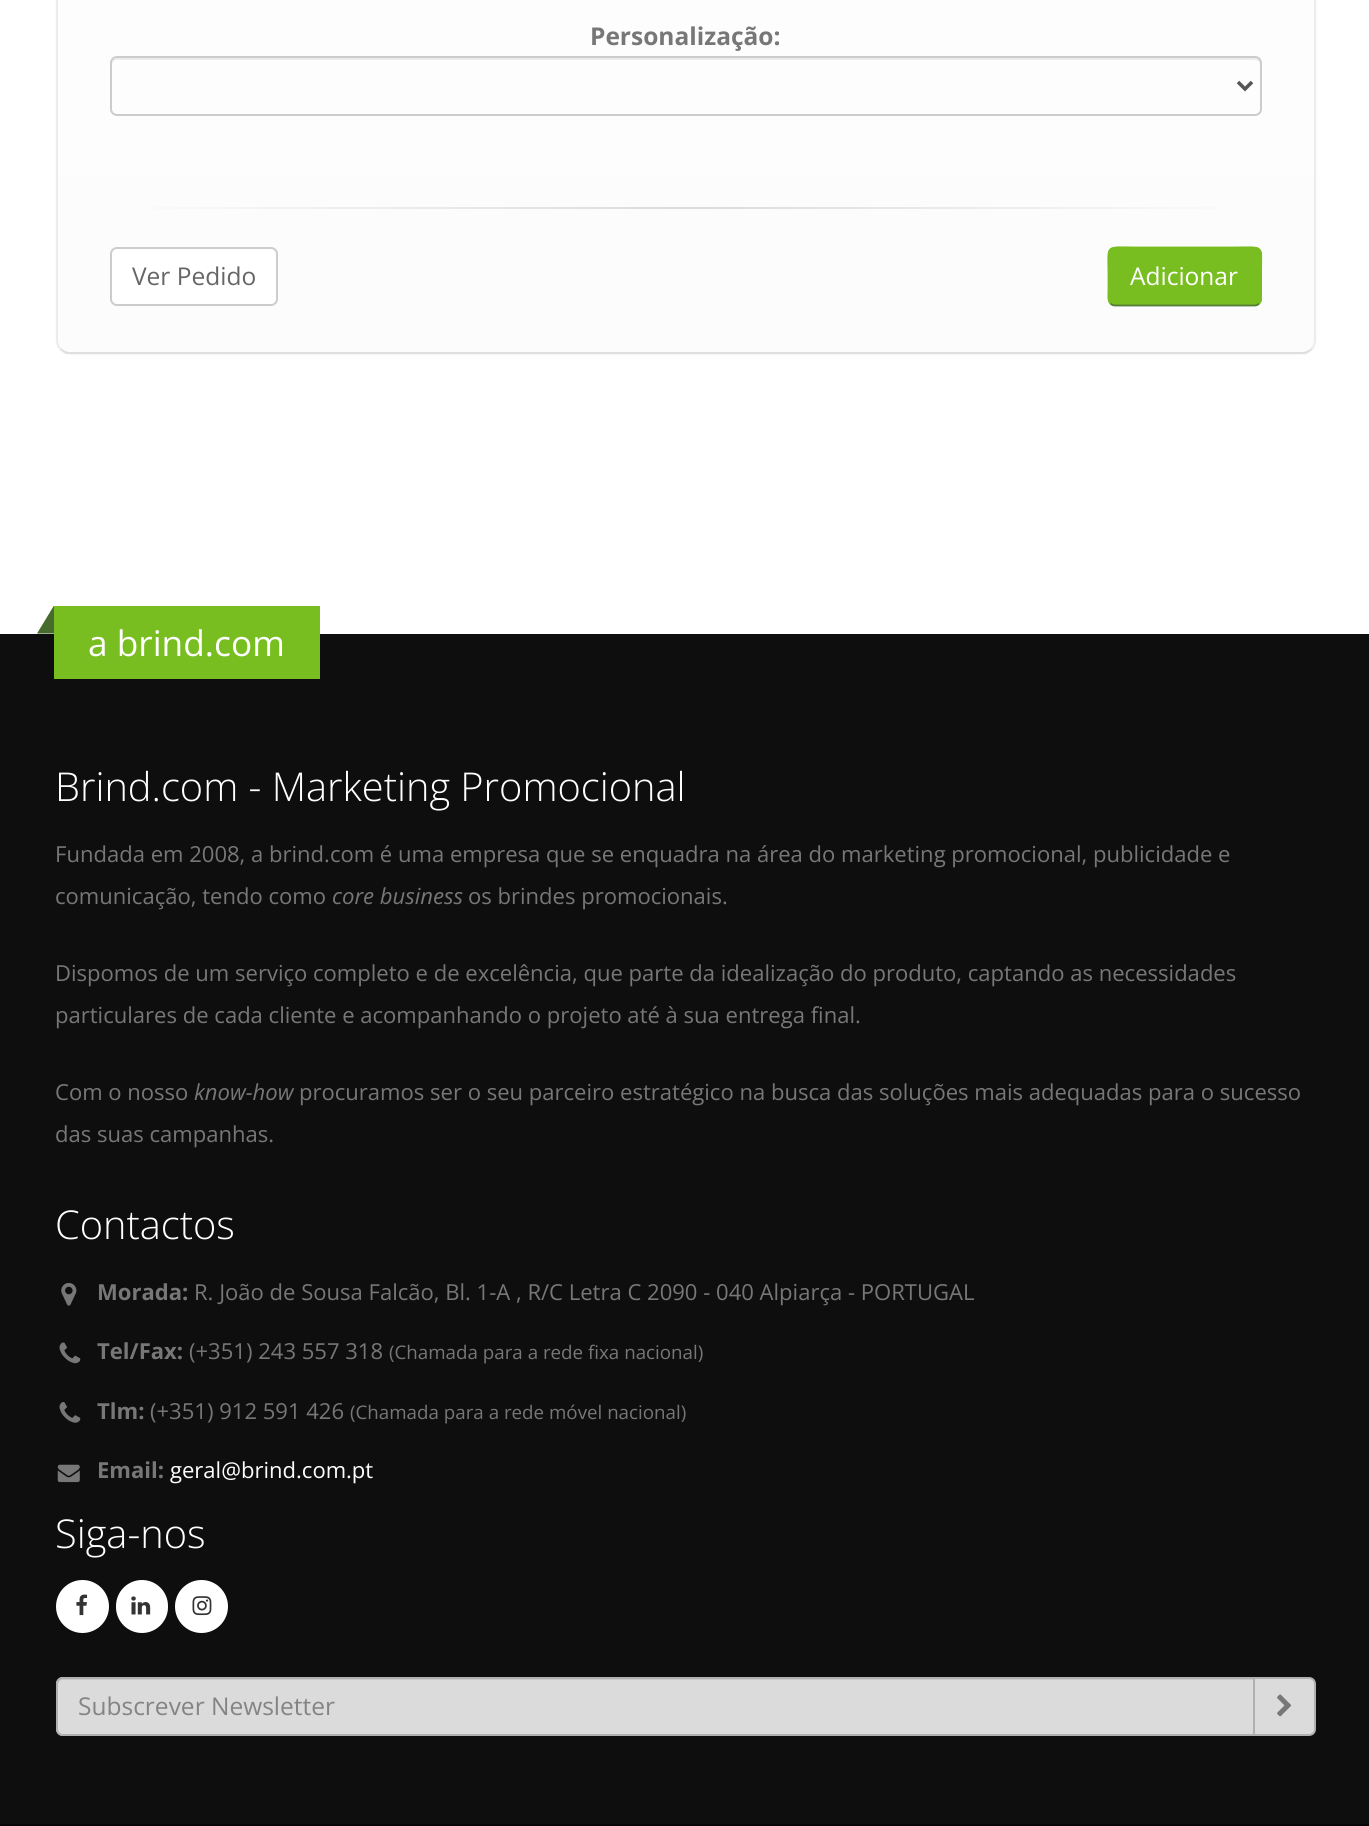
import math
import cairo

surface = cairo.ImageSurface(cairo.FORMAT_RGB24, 1369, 1826)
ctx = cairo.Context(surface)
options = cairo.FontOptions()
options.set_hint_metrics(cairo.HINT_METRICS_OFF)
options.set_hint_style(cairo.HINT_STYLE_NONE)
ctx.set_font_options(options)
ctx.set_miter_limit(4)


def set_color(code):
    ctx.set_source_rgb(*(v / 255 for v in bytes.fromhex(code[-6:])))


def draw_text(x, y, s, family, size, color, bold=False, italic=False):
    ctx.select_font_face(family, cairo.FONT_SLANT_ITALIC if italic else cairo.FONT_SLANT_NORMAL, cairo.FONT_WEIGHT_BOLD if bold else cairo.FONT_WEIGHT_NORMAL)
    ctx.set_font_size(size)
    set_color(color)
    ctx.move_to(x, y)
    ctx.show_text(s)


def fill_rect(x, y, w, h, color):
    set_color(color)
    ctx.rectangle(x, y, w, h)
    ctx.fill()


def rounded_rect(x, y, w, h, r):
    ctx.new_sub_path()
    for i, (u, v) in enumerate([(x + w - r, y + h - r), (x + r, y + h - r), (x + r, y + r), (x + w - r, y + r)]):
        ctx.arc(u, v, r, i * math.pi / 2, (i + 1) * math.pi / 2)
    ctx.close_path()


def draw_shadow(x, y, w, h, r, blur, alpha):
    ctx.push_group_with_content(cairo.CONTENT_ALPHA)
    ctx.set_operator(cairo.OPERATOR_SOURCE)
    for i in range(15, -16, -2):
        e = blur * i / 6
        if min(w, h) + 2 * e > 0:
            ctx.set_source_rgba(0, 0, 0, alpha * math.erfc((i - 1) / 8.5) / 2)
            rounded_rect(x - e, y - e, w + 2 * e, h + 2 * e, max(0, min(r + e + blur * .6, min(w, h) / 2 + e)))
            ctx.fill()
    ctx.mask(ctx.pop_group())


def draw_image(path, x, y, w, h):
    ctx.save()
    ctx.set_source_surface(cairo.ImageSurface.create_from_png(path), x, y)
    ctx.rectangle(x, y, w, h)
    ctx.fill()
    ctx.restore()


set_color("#ffffff")
ctx.paint()
set_color("#000000")
draw_shadow(56, -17, 1260, 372, 14, 1, 0.04)
ctx.save()
rounded_rect(56, -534, 1260, 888, 14)
ctx.clip()
gradient = cairo.LinearGradient(686, -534, 686, 352)
gradient.add_color_stop_rgba(0.01, 1, 1, 1, 1)
gradient.add_color_stop_rgba(0.98, 0.988, 0.988, 0.988, 1)
ctx.set_source(gradient)
ctx.new_path()
ctx.move_to(70, -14)
ctx.line_to(1302, -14)
ctx.curve_to(1309.5, -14, 1316, -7.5, 1316, 0)
ctx.line_to(1316, 352)
ctx.line_to(56, 352)
ctx.line_to(56, 0)
ctx.curve_to(56, -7.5, 62.5, -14, 70, -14)
ctx.close_path()
ctx.fill()
ctx.restore()
set_color("#ececec")
ctx.new_path()
ctx.move_to(1311, 348)
ctx.curve_to(1313, 346, 1314, 343, 1314, 340)
ctx.line_to(1314, -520)
ctx.curve_to(1314, -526, 1310, -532, 1304, -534)
ctx.line_to(1305, -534)
ctx.curve_to(1311, -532, 1316, -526, 1316, -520)
ctx.line_to(1316, 340)
ctx.curve_to(1316, 343, 1315, 347, 1312, 350)
ctx.close_path()
ctx.fill()
set_color("#dfdfdf")
ctx.new_path()
ctx.move_to(66, 354)
ctx.curve_to(64, 353, 62, 351, 60, 350)
ctx.line_to(61, 348)
ctx.curve_to(63, 350, 66, 352, 70, 352)
ctx.line_to(1302, 352)
ctx.curve_to(1306, 352, 1309, 350, 1311, 348)
ctx.line_to(1312, 350)
ctx.curve_to(1310, 351, 1308, 353, 1306, 354)
ctx.close_path()
ctx.fill()
set_color("#ececec")
ctx.new_path()
ctx.move_to(68, -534)
ctx.curve_to(62, -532, 58, -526, 58, -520)
ctx.line_to(58, 340)
ctx.curve_to(58, 343, 59, 346, 61, 348)
ctx.line_to(60, 350)
ctx.curve_to(57, 347, 56, 343, 56, 340)
ctx.line_to(56, -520)
ctx.curve_to(56, -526, 61, -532, 67, -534)
ctx.close_path()
ctx.fill()
draw_text(590, 45, "Personalização:", "Open Sans", 24.5, "#777777", bold=True)
set_color("#ececec")
ctx.new_path()
ctx.move_to(117, 60)
ctx.line_to(1255, 60)
ctx.curve_to(1258, 60, 1260, 62, 1260, 65)
ctx.line_to(1260, 63)
ctx.curve_to(1260, 60, 1258, 58, 1255, 58)
ctx.line_to(117, 58)
ctx.curve_to(114, 58, 112, 60, 112, 63)
ctx.line_to(112, 65)
ctx.curve_to(112, 62, 114, 60, 117, 60)
ctx.close_path()
ctx.fill()
rounded_rect(111, 57, 1150, 58, 6)
set_color("#cccccc")
ctx.stroke()
ctx.new_path()
ctx.move_to(1238, 82)
ctx.line_to(1245, 89)
ctx.line_to(1252, 82)
set_color("#555555")
ctx.set_line_width(3.5)
ctx.stroke()
gradient = cairo.LinearGradient(110, 207, 1262, 207)
gradient.add_color_stop_rgba(0, 0.988, 0.988, 0.988, 1)
gradient.add_color_stop_rgba(0.5, 0.859, 0.859, 0.859, 1)
gradient.add_color_stop_rgba(1, 0.988, 0.988, 0.988, 1)
ctx.set_source(gradient)
ctx.rectangle(154, 207, 1064, 2)
ctx.fill()
set_color("#ffffff")
rounded_rect(111, 248, 166, 57, 6)
ctx.fill_preserve()
set_color("#cccccc")
ctx.set_line_width(2)
ctx.stroke()
draw_text(132, 285, "Ver Pedido", "Open Sans", 24.5, "#666666")
set_color("#78be20")
rounded_rect(1108, 247, 154, 59, 7)
ctx.fill()
ctx.new_path()
ctx.move_to(1259, 303.5)
ctx.curve_to(1258, 304.5, 1256.5, 305.5, 1255, 305.5)
ctx.line_to(1115, 305.5)
ctx.curve_to(1113, 305.5, 1111.5, 304.5, 1110.5, 303.5)
set_color("#527d34")
ctx.set_line_width(1.8)
ctx.stroke()
ctx.new_path()
ctx.move_to(1110.5, 303.5)
ctx.curve_to(1107.5, 300.5, 1108.5, 295, 1108.5, 291.5)
ctx.line_to(1108.5, 276.5)
ctx.curve_to(1108.5, 243, 1103.5, 247.5, 1138, 247.5)
ctx.line_to(1231.5, 247.5)
ctx.curve_to(1266, 247.5, 1261, 243, 1261, 276.5)
ctx.line_to(1261, 291.5)
ctx.curve_to(1261, 295, 1262, 300.5, 1259, 303.5)
set_color("#78be20")
ctx.stroke()
draw_text(1130, 285, "Adicionar", "Open Sans", 24.5, "#ffffff")
fill_rect(0, 634, 1369, 1190, "#0e0e0e")
fill_rect(54, 606, 266, 73, "#78be20")
set_color("#466b2d")
ctx.new_path()
ctx.move_to(54, 605.5)
ctx.line_to(54, 633.5)
ctx.line_to(37, 633.5)
ctx.close_path()
ctx.fill()
draw_text(88, 656, "a brind.com", "Open Sans", 35.25, "#ffffff")
draw_text(55, 801, "Brind.com - Marketing Promocional", "Open Sans Light", 39.75, "#ffffff")
draw_text(55, 862, "Fundada em 2008, a brind.com é uma empresa que se enquadra na área do marketing promocional, publicidade e", "Open Sans", 22.05, "#777777")
draw_text(55, 904, "comunicação, tendo como", "Open Sans", 22.05, "#777777")
draw_text(332, 904, "core business", "Open Sans", 22.05, "#777777", italic=True)
draw_text(468, 904, "os brindes promocionais.", "Open Sans", 22.05, "#777777")
draw_text(55, 981, "Dispomos de um serviço completo e de excelência, que parte da idealização do produto, captando as necessidades", "Open Sans", 22.05, "#777777")
draw_text(55, 1023, "particulares de cada cliente e acompanhando o projeto até à sua entrega final.", "Open Sans", 22.05, "#777777")
draw_text(55, 1100, "Com o nosso", "Open Sans", 22.05, "#777777")
draw_text(194, 1100, "know-how", "Open Sans", 22.05, "#777777", italic=True)
draw_text(299, 1100, "procuramos ser o seu parceiro estratégico na busca das soluções mais adequadas para o sucesso", "Open Sans", 22.05, "#777777")
draw_text(55, 1142, "das suas campanhas.", "Open Sans", 22.05, "#777777")
draw_text(55, 1239, "Contactos", "Open Sans Light", 39.75, "#ffffff")
draw_image("assets/img1.png", 61, 1283, 16, 23)
draw_text(97, 1300, "Morada:", "Open Sans", 22.05, "#777777", bold=True)
draw_text(194, 1300, "R. João de Sousa Falcão, Bl. 1-A , R/C Letra C 2090 - 040 Alpiarça - PORTUGAL", "Open Sans", 22.05, "#777777")
draw_image("assets/img2.png", 59, 1342, 22, 22)
draw_text(97, 1359, "Tel/Fax:", "Open Sans", 22.05, "#777777", bold=True)
draw_text(189, 1359, "(+351) 243 557 318", "Open Sans", 22.05, "#777777")
draw_text(389, 1359, "(Chamada para a rede fixa nacional)", "Open Sans", 18.75, "#777777")
draw_image("assets/img3.png", 59, 1402, 22, 21)
draw_text(97, 1419, "Tlm:", "Open Sans", 22.05, "#777777", bold=True)
draw_text(150, 1419, "(+351) 912 591 426", "Open Sans", 22.05, "#777777")
draw_text(350, 1419, "(Chamada para a rede móvel nacional)", "Open Sans", 18.75, "#777777")
draw_image("assets/img4.png", 57, 1464, 23, 19)
draw_text(97, 1478, "Email:", "Open Sans", 22.05, "#777777", bold=True)
draw_text(170, 1478, "geral@brind.com.pt", "Open Sans", 22.05, "#ffffff")
draw_text(55, 1548, "Siga-nos", "Open Sans Light", 39.75, "#ffffff")
ctx.new_path()
ctx.arc(82.5, 1606.5, 26.5, 0, 2 * math.pi)
ctx.fill()
draw_image("assets/img5.png", 76, 1594, 12, 22)
rounded_rect(116, 1580, 52, 53, 26)
ctx.fill()
draw_image("assets/img6.png", 131, 1596, 20, 19)
ctx.arc(201.5, 1606.5, 26.5, 0, 2 * math.pi)
ctx.fill()
draw_image("assets/img7.png", 192, 1596, 20, 20)
set_color("#dbdbdb")
ctx.new_path()
ctx.move_to(63, 1677)
ctx.line_to(1255, 1677)
ctx.line_to(1255, 1736)
ctx.line_to(63, 1736)
ctx.curve_to(59, 1736, 56, 1733, 56, 1729)
ctx.line_to(56, 1684)
ctx.curve_to(56, 1680, 59, 1677, 63, 1677)
ctx.close_path()
ctx.fill()
set_color("#cbcbcb")
ctx.new_path()
ctx.move_to(63, 1680)
ctx.line_to(1253, 1680)
ctx.line_to(1253, 1678)
ctx.line_to(63, 1678)
ctx.curve_to(60, 1678, 58, 1680, 58, 1683)
ctx.line_to(58, 1685)
ctx.curve_to(58, 1682, 60, 1680, 63, 1680)
ctx.close_path()
ctx.fill()
ctx.new_path()
ctx.move_to(63, 1678)
ctx.line_to(1254, 1678)
ctx.line_to(1254, 1735)
ctx.line_to(63, 1735)
ctx.curve_to(59.5, 1735, 57, 1732.5, 57, 1729)
ctx.line_to(57, 1684)
ctx.curve_to(57, 1680.5, 59.5, 1678, 63, 1678)
ctx.close_path()
set_color("#b0b0b0")
ctx.set_line_width(2)
ctx.stroke()
draw_text(78, 1715, "Subscrever Newsletter", "Open Sans", 24.5, "#848484")
set_color("#dbdbdb")
ctx.new_path()
ctx.move_to(1254, 1678)
ctx.line_to(1309, 1678)
ctx.curve_to(1312.5, 1678, 1315, 1680.5, 1315, 1684)
ctx.line_to(1315, 1729)
ctx.curve_to(1315, 1732.5, 1312.5, 1735, 1309, 1735)
ctx.line_to(1254, 1735)
ctx.close_path()
ctx.fill_preserve()
set_color("#b0b0b0")
ctx.stroke()
draw_image("assets/img8.png", 1277, 1694, 15, 23)
fill_rect(0, 1824, 1369, 2, "#060606")
surface.write_to_png("output.png")
